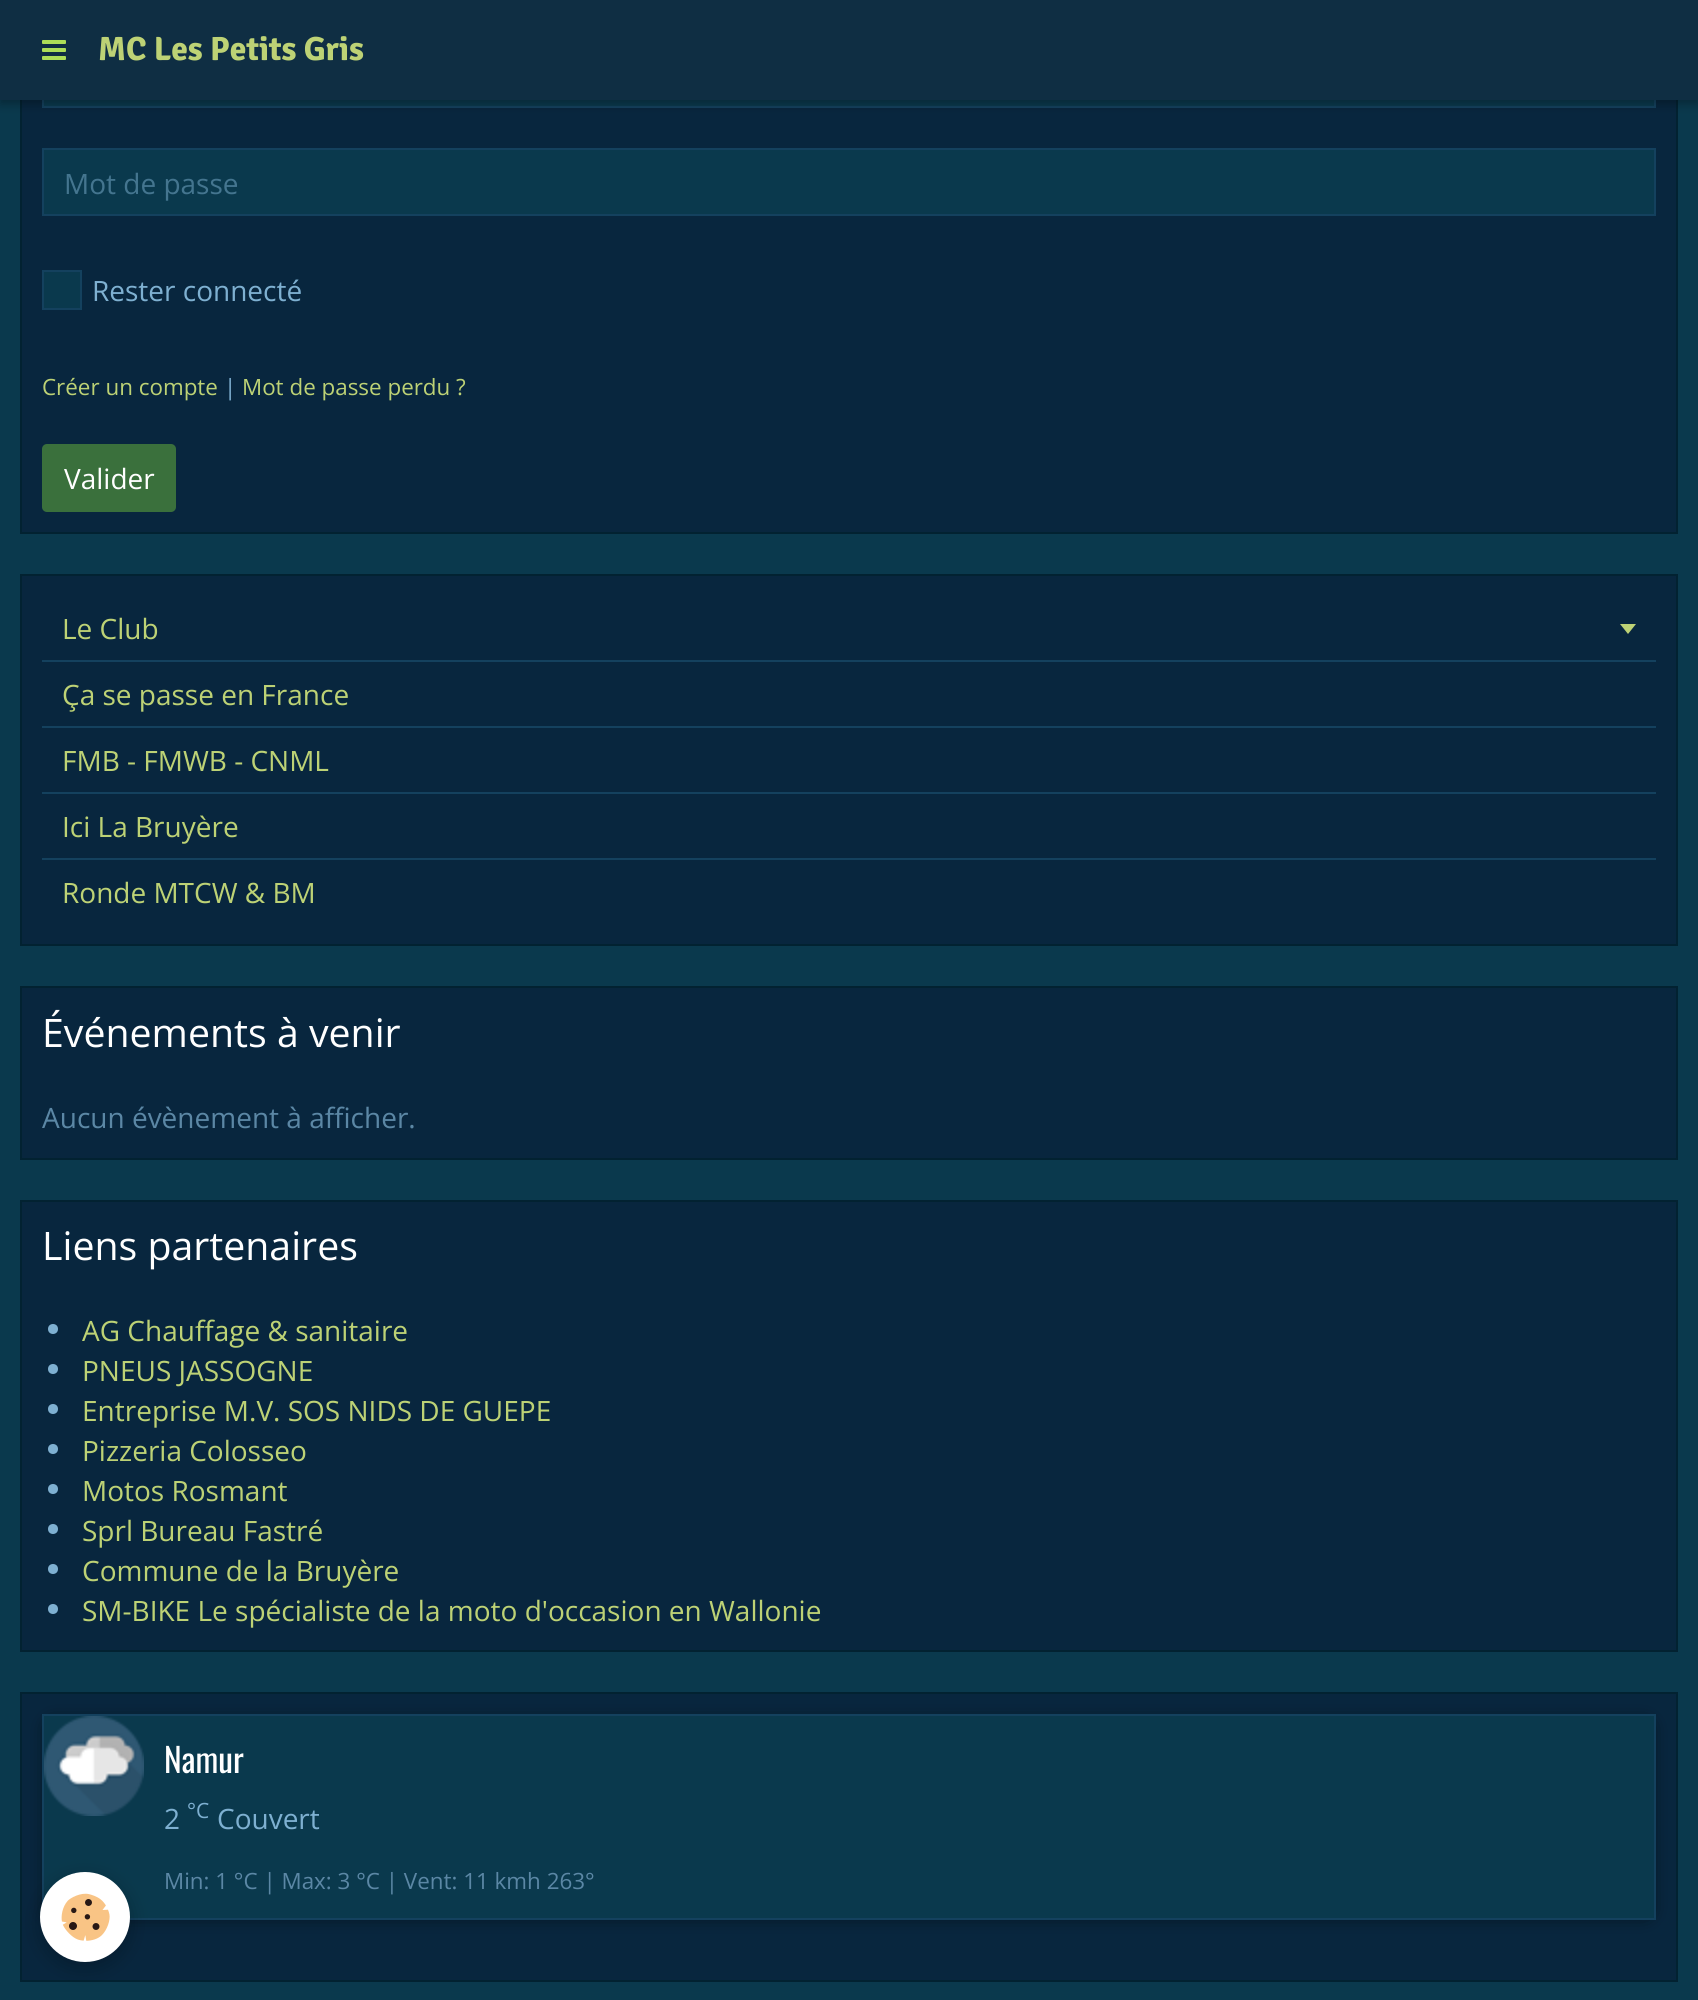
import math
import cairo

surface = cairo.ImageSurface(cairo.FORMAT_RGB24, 1698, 2000)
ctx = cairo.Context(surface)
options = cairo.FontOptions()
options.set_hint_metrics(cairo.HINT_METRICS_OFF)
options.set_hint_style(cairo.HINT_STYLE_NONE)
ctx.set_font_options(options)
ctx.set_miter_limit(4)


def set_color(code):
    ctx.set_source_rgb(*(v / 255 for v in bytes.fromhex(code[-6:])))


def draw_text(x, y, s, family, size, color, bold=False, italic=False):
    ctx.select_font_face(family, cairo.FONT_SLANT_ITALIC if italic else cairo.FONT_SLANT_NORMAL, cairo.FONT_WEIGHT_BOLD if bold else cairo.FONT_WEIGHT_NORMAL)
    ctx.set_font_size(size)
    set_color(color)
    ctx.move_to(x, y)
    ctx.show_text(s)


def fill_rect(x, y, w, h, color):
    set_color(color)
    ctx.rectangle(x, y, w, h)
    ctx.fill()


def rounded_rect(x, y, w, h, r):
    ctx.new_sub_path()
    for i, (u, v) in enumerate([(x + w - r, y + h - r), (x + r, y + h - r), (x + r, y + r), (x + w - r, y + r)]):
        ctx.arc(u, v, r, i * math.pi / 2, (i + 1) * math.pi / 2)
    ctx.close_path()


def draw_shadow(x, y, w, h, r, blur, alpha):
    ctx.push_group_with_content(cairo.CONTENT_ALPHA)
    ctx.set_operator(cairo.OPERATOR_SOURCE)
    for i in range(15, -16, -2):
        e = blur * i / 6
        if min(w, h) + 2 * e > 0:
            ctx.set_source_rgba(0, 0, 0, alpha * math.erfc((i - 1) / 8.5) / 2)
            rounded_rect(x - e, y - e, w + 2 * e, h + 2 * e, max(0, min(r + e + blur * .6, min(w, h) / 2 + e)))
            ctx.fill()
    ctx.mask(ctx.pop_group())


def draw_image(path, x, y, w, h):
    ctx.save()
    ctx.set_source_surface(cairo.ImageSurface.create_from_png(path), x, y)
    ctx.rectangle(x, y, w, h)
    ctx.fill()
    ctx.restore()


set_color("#0a394d")
ctx.paint()
fill_rect(22, 100, 1654, 432, "#08263e")
ctx.rectangle(21, -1, 1656, 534)
set_color("#022231")
ctx.stroke()
fill_rect(44, 100, 1610, 6, "#0a394d")
ctx.rectangle(43, 41, 1612, 66)
set_color("#14415e")
ctx.stroke()
set_color("#000000")
draw_shadow(0, 4, 1698, 100, 0, 5, 0.3)
fill_rect(0, 0, 1698, 100, "#0f2e43")
draw_image("assets/img1.png", 42, 40, 24, 20)
draw_text(98, 60, "MC Les Petits Gris", "Signika", 33.5, "#bdd275", bold=True)
set_color("#0a394d")
ctx.rectangle(43, 149, 1612, 66)
ctx.fill_preserve()
set_color("#14415e")
ctx.stroke()
draw_text(64, 194, "Mot de passe", "Open Sans", 28, "#44758f")
set_color("#0a394d")
ctx.rectangle(43, 271, 38, 38)
ctx.fill_preserve()
set_color("#14415e")
ctx.stroke()
draw_text(92, 301, "Rester connecté", "Open Sans", 28, "#7eb0d1")
draw_text(42, 395, "Créer un compte", "Open Sans", 22.4, "#bdd275")
draw_text(224, 395, "|", "Open Sans", 22.4, "#7eb0d1")
draw_text(242, 395, "Mot de passe perdu ?", "Open Sans", 22.4, "#bdd275")
set_color("#3a703c")
rounded_rect(42, 444, 134, 68, 5)
ctx.fill()
draw_text(64, 489, "Valider", "Open Sans", 28, "#ffffff")
set_color("#08263e")
ctx.rectangle(21, 575, 1656, 370)
ctx.fill_preserve()
set_color("#022231")
ctx.stroke()
fill_rect(42, 660, 1614, 2, "#14415e")
draw_text(62, 639, "Le Club", "Open Sans", 28, "#bdd275")
ctx.new_path()
ctx.move_to(1620, 624)
ctx.line_to(1636, 624)
ctx.line_to(1628, 634)
ctx.close_path()
ctx.fill()
fill_rect(42, 726, 1614, 2, "#14415e")
draw_text(62, 705, "Ça se passe en France", "Open Sans", 28, "#bdd275")
fill_rect(42, 792, 1614, 2, "#14415e")
draw_text(62, 771, "FMB - FMWB - CNML", "Open Sans", 28, "#bdd275")
fill_rect(42, 858, 1614, 2, "#14415e")
draw_text(62, 837, "Ici La Bruyère", "Open Sans", 28, "#bdd275")
draw_text(62, 903, "Ronde MTCW & BM", "Open Sans", 28, "#bdd275")
set_color("#08263e")
ctx.rectangle(21, 987, 1656, 172)
ctx.fill_preserve()
set_color("#022231")
ctx.stroke()
draw_text(42, 1047, "Événements à venir", "Open Sans", 39.25, "#ffffff")
draw_text(42, 1128, "Aucun évènement à afficher.", "Open Sans", 28, "#5b87a5")
set_color("#08263e")
ctx.rectangle(21, 1201, 1656, 450)
ctx.fill_preserve()
set_color("#022231")
ctx.stroke()
draw_text(42, 1260, "Liens partenaires", "Open Sans", 39.25, "#ffffff")
set_color("#7eb0d1")
ctx.new_path()
ctx.arc(53, 1329, 5, 0, 2 * math.pi)
ctx.fill()
draw_text(82, 1341, "AG Chauffage & sanitaire", "Open Sans", 28, "#bdd275")
set_color("#7eb0d1")
ctx.new_path()
ctx.arc(53, 1369, 5, 0, 2 * math.pi)
ctx.fill()
draw_text(82, 1381, "PNEUS JASSOGNE", "Open Sans", 28, "#bdd275")
set_color("#7eb0d1")
ctx.new_path()
ctx.arc(53, 1409, 5, 0, 2 * math.pi)
ctx.fill()
draw_text(82, 1421, "Entreprise M.V. SOS NIDS DE GUEPE", "Open Sans", 28, "#bdd275")
set_color("#7eb0d1")
ctx.new_path()
ctx.arc(53, 1449, 5, 0, 2 * math.pi)
ctx.fill()
draw_text(82, 1461, "Pizzeria Colosseo", "Open Sans", 28, "#bdd275")
set_color("#7eb0d1")
ctx.new_path()
ctx.arc(53, 1489, 5, 0, 2 * math.pi)
ctx.fill()
draw_text(82, 1501, "Motos Rosmant", "Open Sans", 28, "#bdd275")
set_color("#7eb0d1")
ctx.new_path()
ctx.arc(53, 1529, 5, 0, 2 * math.pi)
ctx.fill()
draw_text(82, 1541, "Sprl Bureau Fastré", "Open Sans", 28, "#bdd275")
set_color("#7eb0d1")
ctx.new_path()
ctx.arc(53, 1569, 5, 0, 2 * math.pi)
ctx.fill()
draw_text(82, 1581, "Commune de la Bruyère", "Open Sans", 28, "#bdd275")
set_color("#7eb0d1")
ctx.new_path()
ctx.arc(53, 1609, 5, 0, 2 * math.pi)
ctx.fill()
draw_text(82, 1621, "SM-BIKE Le spécialiste de la moto d'occasion en Wallonie", "Open Sans", 28, "#bdd275")
set_color("#08263e")
ctx.rectangle(21, 1693, 1656, 288)
ctx.fill_preserve()
set_color("#022231")
ctx.stroke()
set_color("#000000")
draw_shadow(52, 1726, 1594, 186, 0, 10, 1)
set_color("#0a394d")
ctx.rectangle(43, 1715, 1612, 204)
ctx.fill_preserve()
set_color("#14415e")
ctx.stroke()
draw_image("assets/img2.png", 44, 1716, 100, 100)
draw_text(164, 1773, "Namur", "Oswald", 33.5, "#ffffff")
draw_text(164, 1829, "2", "Open Sans", 28, "#7eb0d1")
draw_text(187, 1818, "°C", "Open Sans", 21, "#7eb0d1")
draw_text(217, 1829, "Couvert", "Open Sans", 28, "#7eb0d1")
draw_text(164, 1889, "Min: 1 °C | Max: 3 °C | Vent: 11 kmh 263°", "Open Sans", 22.4, "#5b87a5")
set_color("#000000")
draw_shadow(40, 1878, 90, 90, 45, 10, 0.24)
set_color("#ffffff")
ctx.arc(85, 1917, 45, 0, 2 * math.pi)
ctx.fill()
draw_image("assets/img3.png", 61, 1893, 49, 48)
surface.write_to_png("output.png")
